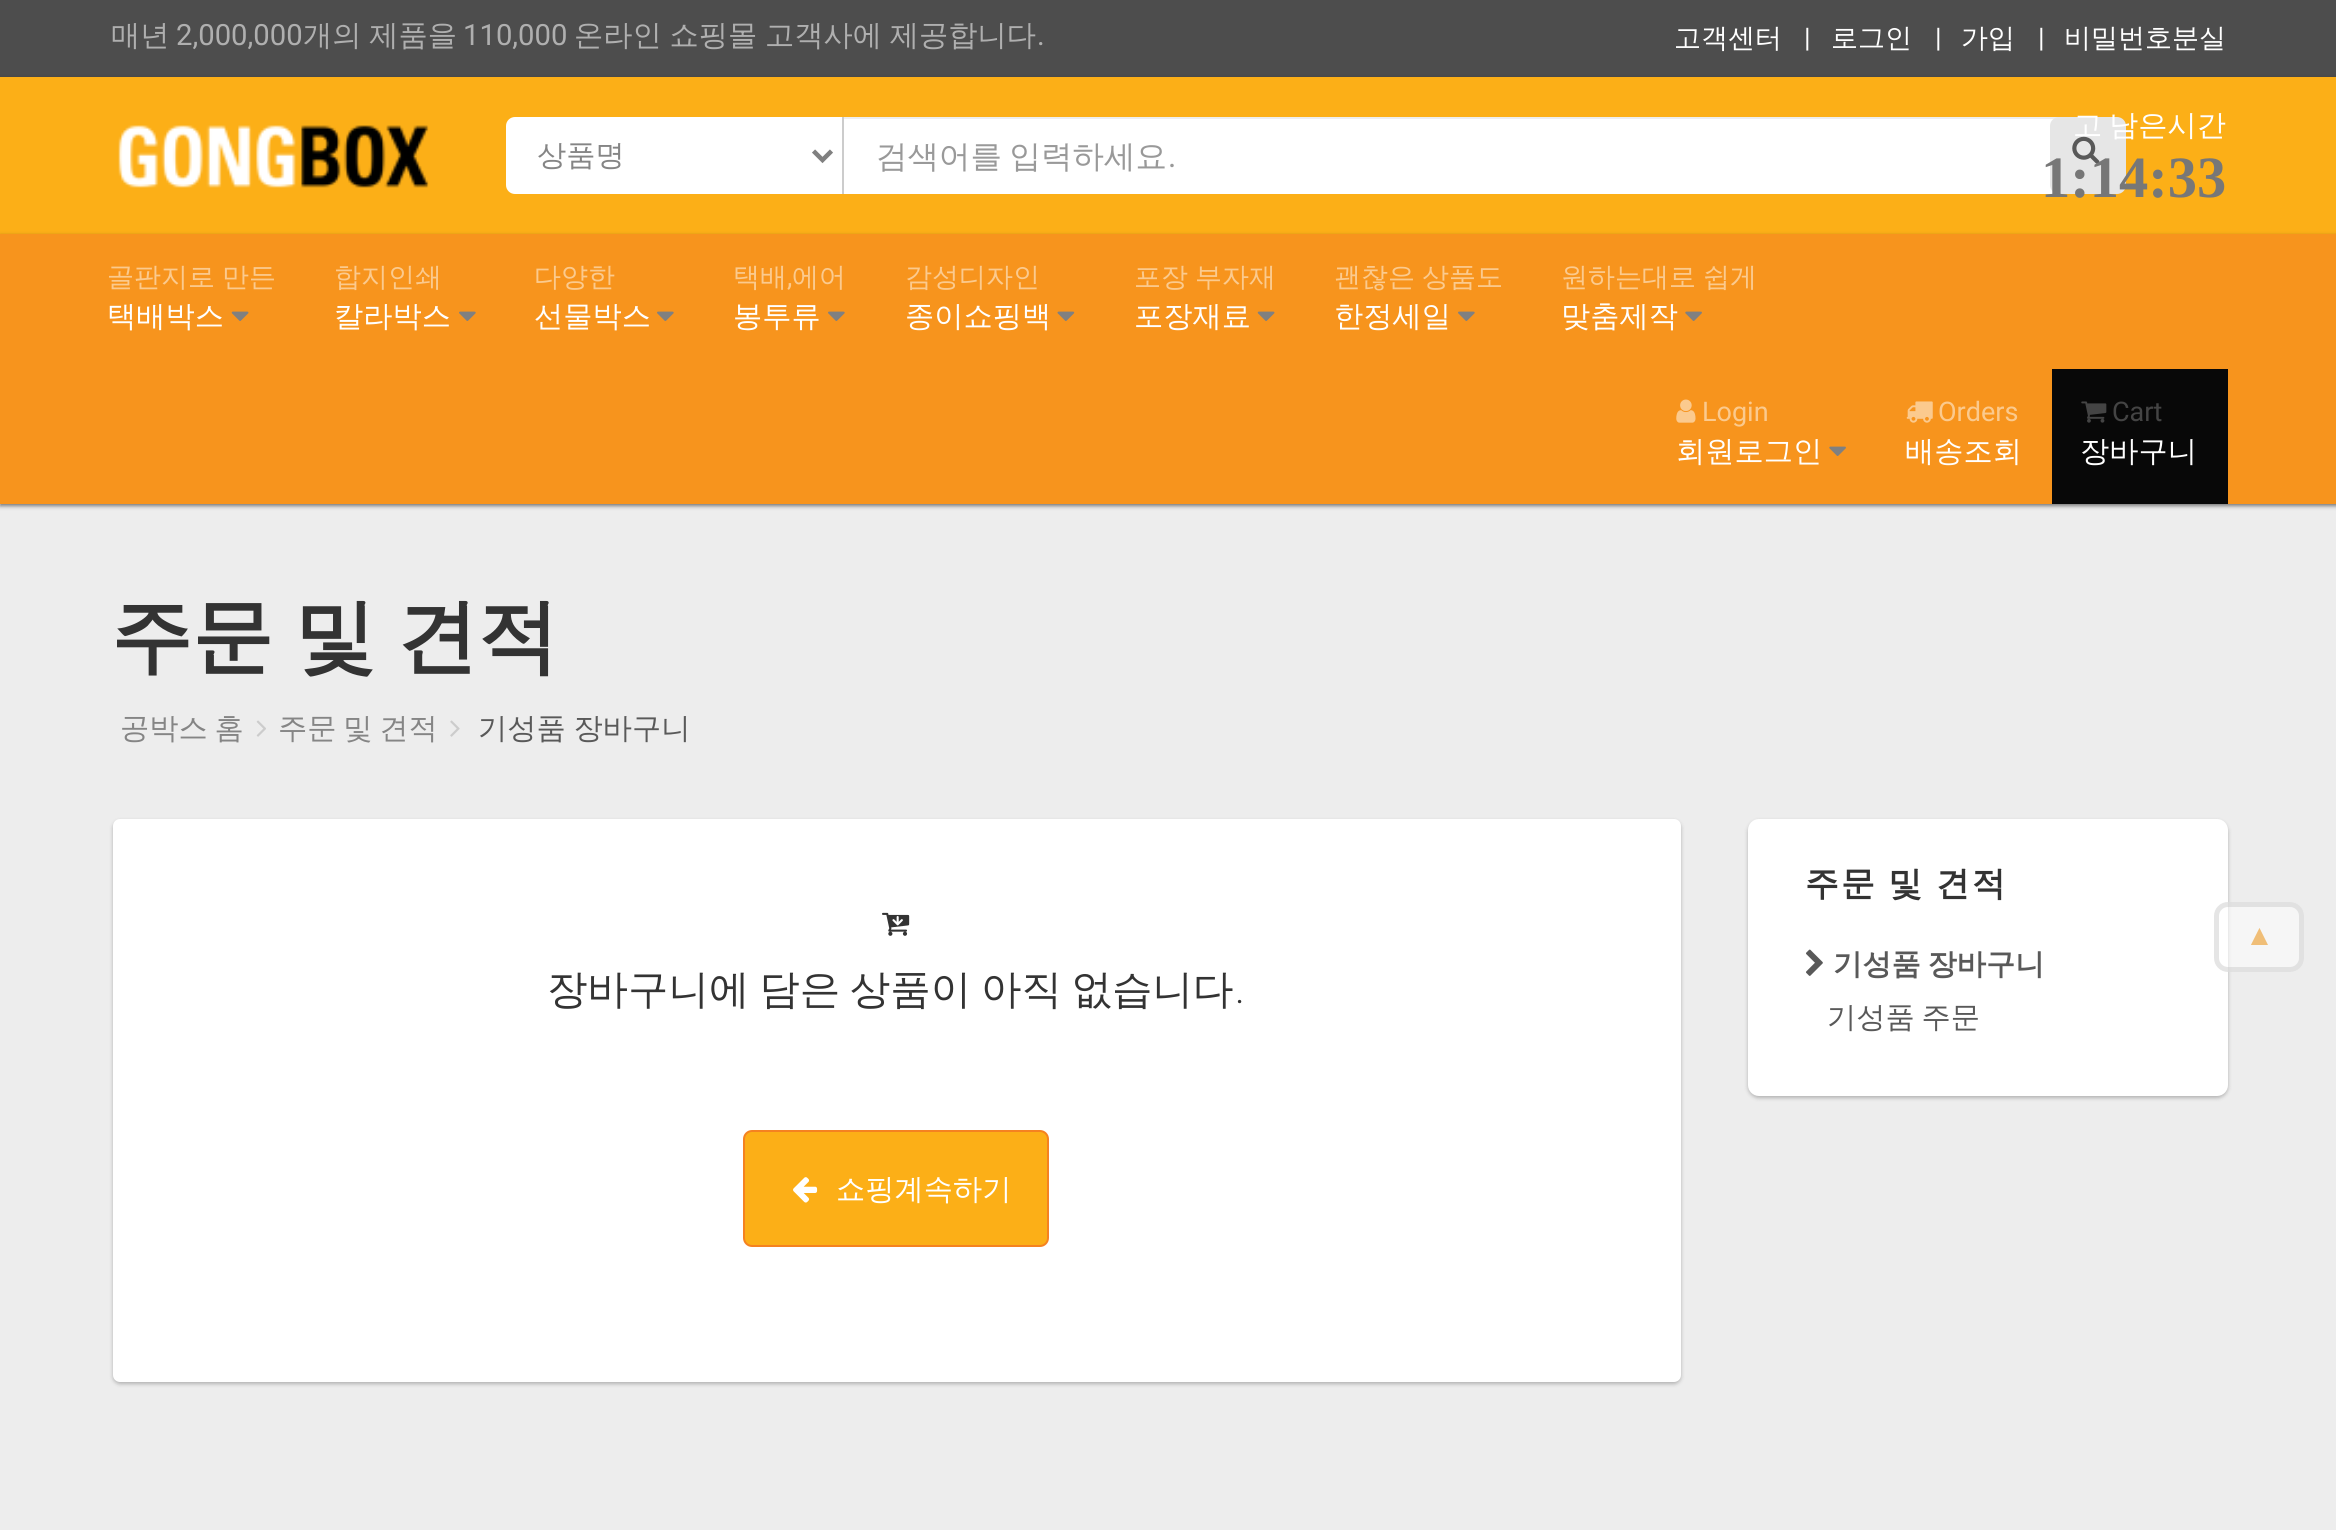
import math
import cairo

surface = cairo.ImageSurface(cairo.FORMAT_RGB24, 2336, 1530)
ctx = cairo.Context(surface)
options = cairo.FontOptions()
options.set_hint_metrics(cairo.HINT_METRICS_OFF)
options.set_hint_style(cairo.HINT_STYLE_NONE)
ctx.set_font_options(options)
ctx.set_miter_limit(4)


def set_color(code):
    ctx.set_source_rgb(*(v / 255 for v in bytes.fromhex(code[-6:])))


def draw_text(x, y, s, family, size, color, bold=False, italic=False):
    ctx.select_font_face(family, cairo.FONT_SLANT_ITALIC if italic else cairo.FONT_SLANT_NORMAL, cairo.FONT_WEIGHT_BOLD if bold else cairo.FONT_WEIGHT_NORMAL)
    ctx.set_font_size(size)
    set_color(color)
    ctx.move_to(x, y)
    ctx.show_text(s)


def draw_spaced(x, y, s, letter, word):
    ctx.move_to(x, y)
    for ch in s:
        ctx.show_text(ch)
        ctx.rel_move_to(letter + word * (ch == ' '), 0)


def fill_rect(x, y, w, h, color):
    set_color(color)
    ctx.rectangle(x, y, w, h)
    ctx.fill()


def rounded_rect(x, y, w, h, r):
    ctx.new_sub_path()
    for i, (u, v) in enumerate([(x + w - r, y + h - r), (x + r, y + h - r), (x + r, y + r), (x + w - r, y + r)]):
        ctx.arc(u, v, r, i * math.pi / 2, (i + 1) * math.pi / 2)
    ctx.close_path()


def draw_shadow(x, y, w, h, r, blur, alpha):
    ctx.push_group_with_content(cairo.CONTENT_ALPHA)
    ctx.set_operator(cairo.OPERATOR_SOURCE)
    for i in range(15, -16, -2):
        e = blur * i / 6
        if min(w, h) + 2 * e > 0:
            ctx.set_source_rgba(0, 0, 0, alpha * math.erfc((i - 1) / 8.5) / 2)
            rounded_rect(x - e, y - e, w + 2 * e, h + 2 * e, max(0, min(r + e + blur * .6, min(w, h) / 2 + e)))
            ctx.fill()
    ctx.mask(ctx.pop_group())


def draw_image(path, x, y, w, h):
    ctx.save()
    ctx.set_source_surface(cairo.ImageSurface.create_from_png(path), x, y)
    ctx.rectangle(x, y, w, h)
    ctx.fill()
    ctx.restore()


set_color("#ededed")
ctx.paint()
fill_rect(0, 0, 2336, 77, "#4d4d4d")
draw_text(111, 45, "매년", "WenQuanYi Zen Hei Medium", 29.25, "#afafaf")
draw_text(176, 45, "2,000,000", "Roboto", 29.25, "#afafaf")
ctx.select_font_face("WenQuanYi Zen Hei Medium")
draw_spaced(303, 45, "개의 제품을", 0, -1)
draw_text(463, 45, "110,000", "Roboto", 29.25, "#afafaf")
ctx.select_font_face("WenQuanYi Zen Hei Medium")
draw_spaced(574, 45, "온라인 쇼핑몰 고객사에 제공합니다", 0, -1)
draw_text(1037, 45, ".", "Roboto", 29.25, "#afafaf")
draw_text(1674, 47, "고객센터", "WenQuanYi Zen Hei Medium", 27, "#ffffff")
draw_text(1804, 47, "|", "Roboto", 27, "#ffffff")
draw_text(1831, 47, "로그인", "WenQuanYi Zen Hei Medium", 27, "#ffffff")
draw_text(1935, 47, "|", "Roboto", 27, "#ffffff")
draw_text(1961, 47, "가입", "WenQuanYi Zen Hei Medium", 27, "#ffffff")
draw_text(2038, 47, "|", "Roboto", 27, "#ffffff")
draw_text(2064, 47, "비밀번호분실", "WenQuanYi Zen Hei Medium", 27, "#ffffff")
set_color("#000000")
draw_shadow(0, 79, 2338, 157, 0, 2, 0.5)
fill_rect(0, 77, 2336, 157, "#fcaf17")
draw_image("assets/img1.png", 118, 125, 311, 63)
fill_rect(844, 117, 1215, 77, "#ffffff")
ctx.set_source_rgba(0, 0, 0, 0.07)
ctx.new_path()
ctx.move_to(549, 119)
ctx.line_to(2084, 119)
ctx.curve_to(2088, 119, 2092, 123, 2092, 128)
ctx.line_to(2092, 187)
ctx.line_to(2092, 190)
ctx.curve_to(2092, 189, 2093, 187, 2093, 185)
ctx.line_to(2093, 126)
ctx.curve_to(2093, 121, 2089, 117, 2084, 117)
ctx.line_to(549, 117)
ctx.curve_to(544, 117, 540, 121, 540, 126)
ctx.line_to(540, 128)
ctx.curve_to(540, 123, 544, 119, 549, 119)
ctx.close_path()
ctx.fill()
set_color("#ffffff")
ctx.new_path()
ctx.move_to(515, 117)
ctx.line_to(844, 117)
ctx.line_to(844, 194)
ctx.line_to(515, 194)
ctx.curve_to(510, 194, 506, 190, 506, 185)
ctx.line_to(506, 126)
ctx.curve_to(506, 121, 510, 117, 515, 117)
ctx.close_path()
ctx.fill()
fill_rect(842, 117, 2, 77, "#cccccc")
ctx.new_path()
ctx.move_to(813.5, 151)
ctx.line_to(822.5, 160)
ctx.line_to(831.5, 151)
set_color("#808080")
ctx.set_line_width(4.5)
ctx.stroke()
draw_text(537, 165, "상품명", "WenQuanYi Zen Hei Medium", 29.25, "#858585")
ctx.set_font_size(31.5)
set_color("#999999")
draw_spaced(876, 167, "검색어를 입력하세요", 0, -2)
draw_text(1168, 167, ".", "Roboto", 31.5, "#999999")
set_color("#e6e6e6")
rounded_rect(2050, 117, 76, 77, 9)
ctx.fill()
draw_image("assets/img2.png", 2072, 136, 28, 28)
ctx.select_font_face("WenQuanYi Zen Hei Medium")
ctx.set_font_size(29.25)
set_color("#ffffff")
draw_spaced(2073, 135, "고 남은시간", 0, -2)
draw_text(2041, 197, "1:14:33", "Liberation Serif", 58.5, "#777777", bold=True)
set_color("#000000")
draw_shadow(0, 236, 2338, 270, 0, 2, 0.5)
fill_rect(0, 234, 2336, 270, "#f7941d")
ctx.select_font_face("WenQuanYi Zen Hei Medium")
ctx.set_font_size(27)
set_color("#fbca8e")
draw_spaced(107, 286, "골판지로 만든", 0, -1)
draw_text(107, 326, "택배박스", "WenQuanYi Zen Hei Medium", 29.25, "#ffffff")
draw_image("assets/img3.png", 231, 311, 18, 10)
draw_text(334, 286, "합지인쇄", "WenQuanYi Zen Hei Medium", 27, "#fbca8e")
draw_text(334, 326, "칼라박스", "WenQuanYi Zen Hei Medium", 29.25, "#ffffff")
draw_image("assets/img4.png", 459, 311, 17, 10)
draw_text(534, 286, "다양한", "WenQuanYi Zen Hei Medium", 27, "#fbca8e")
draw_text(534, 326, "선물박스", "WenQuanYi Zen Hei Medium", 29.25, "#ffffff")
draw_image("assets/img4.png", 657, 311, 17, 10)
draw_text(733, 286, "택배", "WenQuanYi Zen Hei Medium", 27, "#fbca8e")
draw_text(787, 286, ",", "Roboto", 27, "#fbca8e")
draw_text(792, 286, "에어", "WenQuanYi Zen Hei Medium", 27, "#fbca8e")
draw_text(733, 326, "봉투류", "WenQuanYi Zen Hei Medium", 29.25, "#ffffff")
draw_image("assets/img4.png", 828, 311, 17, 10)
draw_text(905, 286, "감성디자인", "WenQuanYi Zen Hei Medium", 27, "#fbca8e")
draw_text(905, 326, "종이쇼핑백", "WenQuanYi Zen Hei Medium", 29.25, "#ffffff")
draw_image("assets/img5.png", 1057, 311, 18, 10)
ctx.set_font_size(27)
set_color("#fbca8e")
draw_spaced(1134, 286, "포장 부자재", 0, -1)
draw_text(1134, 326, "포장재료", "WenQuanYi Zen Hei Medium", 29.25, "#ffffff")
draw_image("assets/img3.png", 1257, 311, 18, 10)
ctx.set_font_size(27)
set_color("#fbca8e")
draw_spaced(1334, 286, "괜찮은 상품도", 0, -1)
draw_text(1334, 326, "한정세일", "WenQuanYi Zen Hei Medium", 29.25, "#ffffff")
draw_image("assets/img4.png", 1458, 311, 17, 10)
ctx.set_font_size(27)
set_color("#fbca8e")
draw_spaced(1561, 286, "원하는대로 쉽게", 0, -1)
draw_text(1561, 326, "맞춤제작", "WenQuanYi Zen Hei Medium", 29.25, "#ffffff")
draw_image("assets/img6.png", 1685, 311, 17, 10)
draw_image("assets/img7.png", 1676, 399, 20, 24)
draw_text(1702, 421, "Login", "Roboto", 27, "#fbca8e")
draw_text(1676, 461, "회원로그인", "WenQuanYi Zen Hei Medium", 29.25, "#ffffff")
draw_image("assets/img6.png", 1829, 446, 17, 10)
draw_image("assets/img8.png", 1906, 401, 27, 22)
draw_text(1938, 421, "Orders", "Roboto", 27, "#fbca8e")
draw_text(1905, 461, "배송조회", "WenQuanYi Zen Hei Medium", 29.25, "#ffffff")
fill_rect(2052, 369, 176, 135, "#080808")
draw_image("assets/img9.png", 2081, 401, 26, 22)
draw_text(2112, 421, "Cart", "Roboto", 27, "#444444")
draw_text(2080, 461, "장바구니", "WenQuanYi Zen Hei Medium", 29.25, "#ffffff")
ctx.select_font_face("WenQuanYi Zen Hei", cairo.FONT_SLANT_NORMAL, cairo.FONT_WEIGHT_BOLD)
ctx.set_font_size(81)
set_color("#333333")
draw_spaced(111, 664, "주문 및 견적", 0, -3)
ctx.select_font_face("WenQuanYi Zen Hei Medium")
ctx.set_font_size(29.25)
set_color("#858585")
draw_spaced(120, 738, "공박스 홈", 0, -2)
draw_image("assets/img10.png", 256, 720, 10, 17)
draw_spaced(278, 738, "주문 및 견적", 0, -2)
draw_image("assets/img11.png", 450, 720, 10, 17)
set_color("#595959")
draw_spaced(478, 738, "기성품 장바구니", 0, -1)
set_color("#000000")
draw_shadow(1748, 821, 480, 277, 11, 2, 0.25)
set_color("#ffffff")
rounded_rect(1748, 819, 480, 277, 11)
ctx.fill()
ctx.select_font_face("WenQuanYi Zen Hei", cairo.FONT_SLANT_NORMAL, cairo.FONT_WEIGHT_BOLD)
ctx.set_font_size(33.75)
set_color("#333333")
draw_spaced(1805, 895, "주문 및 견적", 2.25, -1)
draw_image("assets/img12.png", 1806, 949, 17, 27)
ctx.set_font_size(29.25)
set_color("#595959")
draw_spaced(1833, 974, "기성품 장바구니", 0, -2)
ctx.select_font_face("WenQuanYi Zen Hei Medium")
draw_spaced(1827, 1027, "기성품 주문", 0, -2)
set_color("#000000")
draw_shadow(113, 821, 1568, 563, 7, 2, 0.25)
set_color("#ffffff")
rounded_rect(113, 819, 1568, 563, 7)
ctx.fill()
draw_image("assets/img13.png", 882, 912, 28, 24)
ctx.set_font_size(40.5)
set_color("#333333")
draw_spaced(547, 1003, "장바구니에 담은 상품이 아직 없습니다", 0, -2.5)
draw_text(1235, 1003, ".", "Roboto Light", 40.5, "#333333")
set_color("#fcaf17")
rounded_rect(744, 1131, 304, 115, 8)
ctx.fill_preserve()
set_color("#f58220")
ctx.set_line_width(2)
ctx.stroke()
draw_image("assets/img14.png", 793, 1177, 25, 26)
draw_text(836, 1199, "쇼핑계속하기", "WenQuanYi Zen Hei Medium", 29.25, "#ffffff")
ctx.set_source_rgba(1, 1, 1, 0.5)
rounded_rect(2214, 902, 90, 70, 14)
ctx.fill()
rounded_rect(2216.5, 904.5, 85, 65, 11.5)
ctx.set_source_rgba(0.8, 0.8, 0.8, 0.5)
ctx.set_line_width(5)
ctx.stroke()
draw_text(2245, 945, "▲", "Liberation Sans", 29.25, "#f0be77")
surface.write_to_png("output.png")
